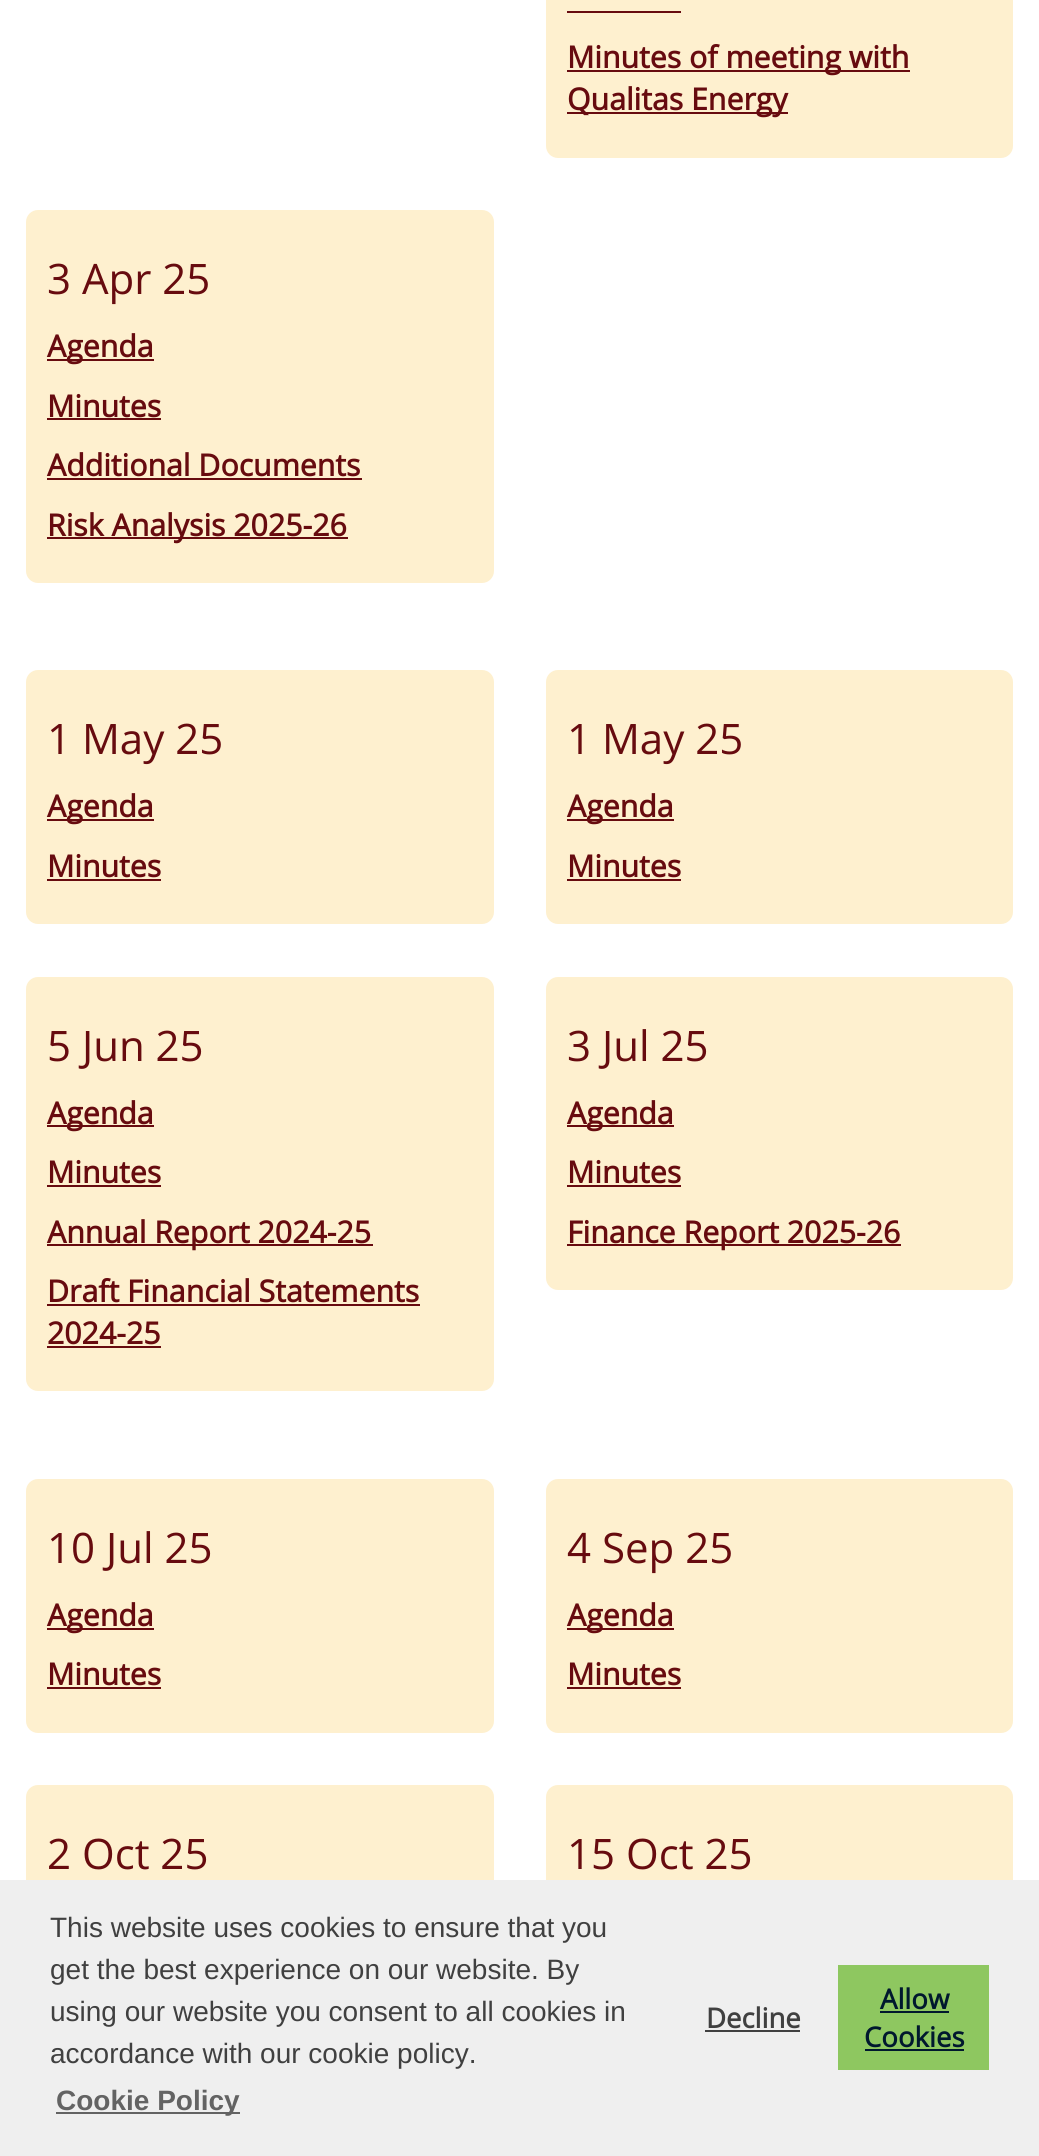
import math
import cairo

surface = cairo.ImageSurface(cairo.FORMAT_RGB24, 1039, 2156)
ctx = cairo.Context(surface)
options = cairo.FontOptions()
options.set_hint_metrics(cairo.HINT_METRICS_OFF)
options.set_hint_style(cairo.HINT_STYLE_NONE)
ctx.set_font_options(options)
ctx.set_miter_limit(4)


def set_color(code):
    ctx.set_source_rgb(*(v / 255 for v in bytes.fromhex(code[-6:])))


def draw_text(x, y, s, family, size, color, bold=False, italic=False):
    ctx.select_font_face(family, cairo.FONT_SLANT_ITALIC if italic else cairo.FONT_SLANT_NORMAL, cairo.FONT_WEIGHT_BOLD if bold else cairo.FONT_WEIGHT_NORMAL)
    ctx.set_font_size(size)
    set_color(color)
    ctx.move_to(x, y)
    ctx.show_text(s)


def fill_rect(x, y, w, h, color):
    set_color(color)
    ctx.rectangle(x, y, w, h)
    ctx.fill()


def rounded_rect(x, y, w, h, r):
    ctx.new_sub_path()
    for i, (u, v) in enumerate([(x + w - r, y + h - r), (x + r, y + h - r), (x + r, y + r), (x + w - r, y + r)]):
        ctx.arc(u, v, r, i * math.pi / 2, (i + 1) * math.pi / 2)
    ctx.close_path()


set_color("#ffffff")
ctx.paint()
set_color("#fef0cf")
rounded_rect(546, -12, 467, 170, 12)
ctx.fill()
fill_rect(567, 11, 114, 2, "#670b0f")
fill_rect(567, 70, 343, 2, "#670b0f")
draw_text(567, 68, "Minutes of meeting with", "Open Sans", 30.25, "#670b0f", bold=True)
fill_rect(567, 112, 221, 2, "#670b0f")
draw_text(567, 110, "Qualitas Energy", "Open Sans", 30.25, "#670b0f", bold=True)
set_color("#fef0cf")
rounded_rect(26, 210, 468, 373, 12)
ctx.fill()
draw_text(47, 294, "3 Apr 25", "Open Sans", 42, "#670b0f")
fill_rect(47, 359, 107, 2, "#670b0f")
draw_text(47, 357, "Agenda", "Open Sans", 30.25, "#670b0f", bold=True)
draw_text(47, 417, "Minutes", "Open Sans", 30.25, "#670b0f", bold=True)
fill_rect(47, 418, 114, 2, "#670b0f")
draw_text(47, 476, "Additional Documents", "Open Sans", 30.25, "#670b0f", bold=True)
fill_rect(47, 478, 315, 2, "#670b0f")
fill_rect(47, 537, 301, 2, "#670b0f")
draw_text(47, 536, "Risk Analysis 2025-26", "Open Sans", 30.25, "#670b0f", bold=True)
set_color("#fef0cf")
rounded_rect(26, 670, 468, 254, 12)
ctx.fill()
draw_text(47, 754, "1 May 25", "Open Sans", 42, "#670b0f")
fill_rect(47, 819, 107, 2, "#670b0f")
draw_text(47, 817, "Agenda", "Open Sans", 30.25, "#670b0f", bold=True)
draw_text(47, 877, "Minutes", "Open Sans", 30.25, "#670b0f", bold=True)
fill_rect(47, 879, 114, 2, "#670b0f")
set_color("#fef0cf")
rounded_rect(546, 670, 467, 254, 12)
ctx.fill()
draw_text(567, 754, "1 May 25", "Open Sans", 42, "#670b0f")
fill_rect(567, 819, 107, 2, "#670b0f")
draw_text(567, 817, "Agenda", "Open Sans", 30.25, "#670b0f", bold=True)
draw_text(567, 877, "Minutes", "Open Sans", 30.25, "#670b0f", bold=True)
fill_rect(567, 879, 114, 2, "#670b0f")
set_color("#fef0cf")
rounded_rect(26, 977, 468, 414, 12)
ctx.fill()
draw_text(47, 1061, "5 Jun 25", "Open Sans", 42, "#670b0f")
fill_rect(47, 1125, 107, 2, "#670b0f")
draw_text(47, 1124, "Agenda", "Open Sans", 30.25, "#670b0f", bold=True)
draw_text(47, 1183, "Minutes", "Open Sans", 30.25, "#670b0f", bold=True)
fill_rect(47, 1185, 114, 2, "#670b0f")
fill_rect(47, 1244, 326, 2, "#670b0f")
draw_text(47, 1243, "Annual Report 2024-25", "Open Sans", 30.25, "#670b0f", bold=True)
draw_text(47, 1302, "Draft Financial Statements", "Open Sans", 30.25, "#670b0f", bold=True)
fill_rect(47, 1304, 373, 2, "#670b0f")
draw_text(47, 1344, "2024-25", "Open Sans", 30.25, "#670b0f", bold=True)
fill_rect(47, 1346, 114, 2, "#670b0f")
set_color("#fef0cf")
rounded_rect(546, 977, 467, 313, 12)
ctx.fill()
draw_text(567, 1061, "3 Jul 25", "Open Sans", 42, "#670b0f")
fill_rect(567, 1125, 107, 2, "#670b0f")
draw_text(567, 1124, "Agenda", "Open Sans", 30.25, "#670b0f", bold=True)
draw_text(567, 1183, "Minutes", "Open Sans", 30.25, "#670b0f", bold=True)
fill_rect(567, 1185, 114, 2, "#670b0f")
fill_rect(567, 1244, 334, 2, "#670b0f")
draw_text(567, 1243, "Finance Report 2025-26", "Open Sans", 30.25, "#670b0f", bold=True)
set_color("#fef0cf")
rounded_rect(26, 1479, 468, 254, 12)
ctx.fill()
draw_text(47, 1563, "10 Jul 25", "Open Sans", 42, "#670b0f")
fill_rect(47, 1628, 107, 2, "#670b0f")
draw_text(47, 1626, "Agenda", "Open Sans", 30.25, "#670b0f", bold=True)
draw_text(47, 1685, "Minutes", "Open Sans", 30.25, "#670b0f", bold=True)
fill_rect(47, 1687, 114, 2, "#670b0f")
set_color("#fef0cf")
rounded_rect(546, 1479, 467, 254, 12)
ctx.fill()
draw_text(567, 1563, "4 Sep 25", "Open Sans", 42, "#670b0f")
fill_rect(567, 1628, 107, 2, "#670b0f")
draw_text(567, 1626, "Agenda", "Open Sans", 30.25, "#670b0f", bold=True)
draw_text(567, 1685, "Minutes", "Open Sans", 30.25, "#670b0f", bold=True)
fill_rect(567, 1687, 114, 2, "#670b0f")
set_color("#fef0cf")
rounded_rect(26, 1785, 468, 313, 12)
ctx.fill()
draw_text(47, 1869, "2 Oct 25", "Open Sans", 42, "#670b0f")
set_color("#fef0cf")
rounded_rect(546, 1785, 467, 254, 12)
ctx.fill()
draw_text(567, 1869, "15 Oct 25", "Open Sans", 42, "#670b0f")
fill_rect(0, 1880, 1039, 276, "#efefef")
draw_text(50, 1937, "This website uses cookies to ensure that you", "Liberation Sans", 28, "#404040")
draw_text(50, 1979, "get the best experience on our website. By", "Liberation Sans", 28, "#404040")
draw_text(50, 2021, "using our website you consent to all cookies in", "Liberation Sans", 28, "#404040")
draw_text(50, 2063, "accordance with our cookie policy.", "Liberation Sans", 28, "#404040")
fill_rect(56, 2112, 184, 2, "#636363")
draw_text(56, 2110, "Cookie Policy", "Liberation Sans", 28, "#636363", bold=True)
draw_text(706, 2028, "Decline", "Open Sans", 27.5, "#404040", bold=True)
fill_rect(705, 2030, 95, 2, "#404040")
fill_rect(838, 1965, 151, 105, "#8ec760")
draw_text(880, 2009, "Allow", "Open Sans", 27.5, "#00182e", bold=True)
fill_rect(880, 2011, 69, 2, "#00182e")
draw_text(864, 2047, "Cookies", "Open Sans", 27.5, "#00182e", bold=True)
fill_rect(865, 2049, 99, 2, "#00182e")
surface.write_to_png("output.png")
